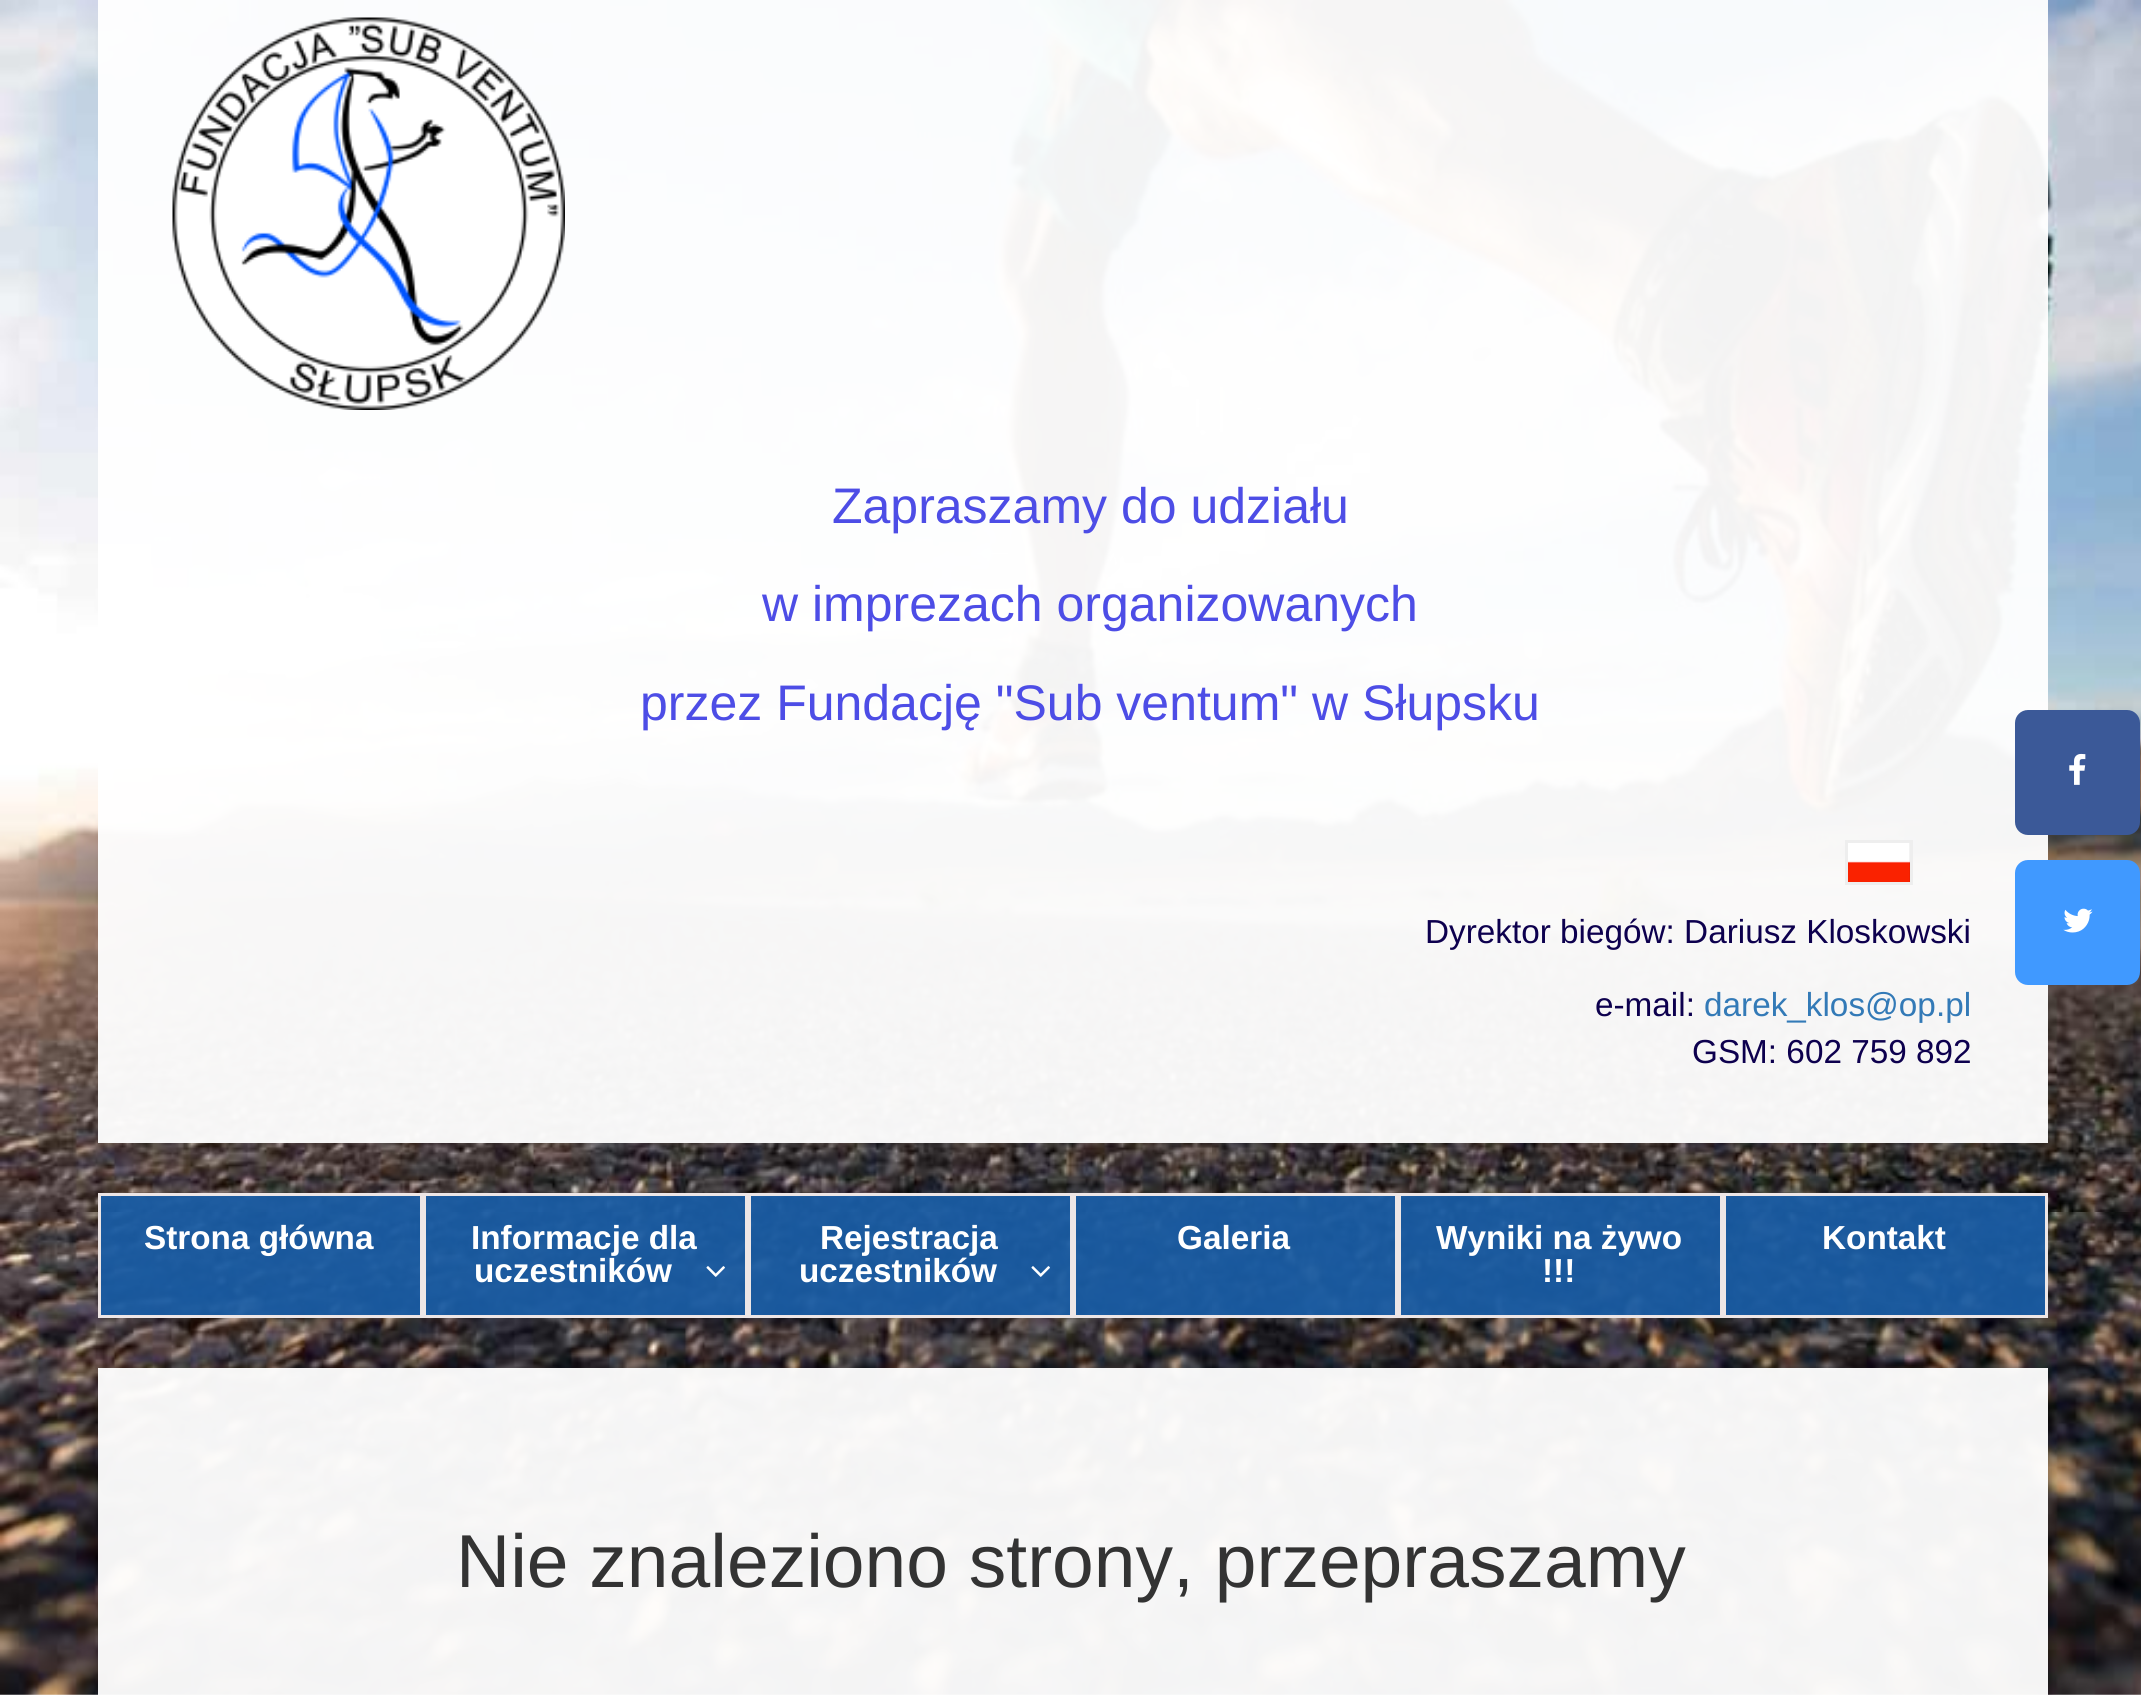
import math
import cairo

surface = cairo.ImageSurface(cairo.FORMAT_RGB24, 2141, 1695)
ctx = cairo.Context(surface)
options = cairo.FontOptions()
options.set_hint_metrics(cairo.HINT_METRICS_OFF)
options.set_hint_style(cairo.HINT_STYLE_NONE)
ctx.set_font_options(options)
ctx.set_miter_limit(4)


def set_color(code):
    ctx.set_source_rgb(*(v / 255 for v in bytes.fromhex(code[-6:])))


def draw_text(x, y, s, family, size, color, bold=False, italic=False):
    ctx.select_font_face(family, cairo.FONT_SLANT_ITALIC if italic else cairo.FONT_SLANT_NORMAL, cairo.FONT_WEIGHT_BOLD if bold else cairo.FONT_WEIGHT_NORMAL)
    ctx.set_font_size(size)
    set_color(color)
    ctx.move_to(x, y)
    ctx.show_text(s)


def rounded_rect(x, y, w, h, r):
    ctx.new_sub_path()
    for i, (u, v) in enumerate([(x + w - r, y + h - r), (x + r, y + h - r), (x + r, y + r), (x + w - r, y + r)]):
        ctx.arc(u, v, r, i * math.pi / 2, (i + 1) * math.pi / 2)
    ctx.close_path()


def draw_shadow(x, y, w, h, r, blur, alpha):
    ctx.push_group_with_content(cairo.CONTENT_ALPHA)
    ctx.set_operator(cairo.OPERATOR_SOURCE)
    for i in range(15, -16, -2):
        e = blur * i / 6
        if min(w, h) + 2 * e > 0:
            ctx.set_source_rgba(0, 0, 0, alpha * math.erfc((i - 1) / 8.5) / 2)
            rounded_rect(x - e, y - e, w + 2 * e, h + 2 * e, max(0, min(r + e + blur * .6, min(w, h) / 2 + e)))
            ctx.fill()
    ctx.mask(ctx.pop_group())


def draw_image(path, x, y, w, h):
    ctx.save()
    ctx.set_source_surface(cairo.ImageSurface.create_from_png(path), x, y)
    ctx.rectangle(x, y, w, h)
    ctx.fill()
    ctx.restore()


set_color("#ffffff")
ctx.paint()
draw_image("assets/img1.png", 0, 0, 2141, 1695)
ctx.set_source_rgba(1, 1, 1, 0.95)
ctx.rectangle(98, 0, 1950, 1143)
ctx.fill()
draw_image("assets/img2.png", 172, 17, 393, 393)
draw_text(832, 523, "Zapraszamy do udziału", "Liberation Sans", 50, "#4d4de6")
draw_text(762, 621, "w imprezach organizowanych", "Liberation Sans", 50, "#4d4de6")
draw_text(640, 720, "przez Fundację \"Sub ventum\" w Słupsku", "Liberation Sans", 50, "#4d4de6")
draw_image("assets/img3.png", 1848, 843, 62, 39)
ctx.rectangle(1846.5, 841.5, 65, 42)
set_color("#eeeeee")
ctx.set_line_width(3)
ctx.stroke()
set_color("#3b5998")
rounded_rect(2015, 710, 125, 125, 13)
ctx.fill()
draw_image("assets/img4.png", 2069, 753, 17, 32)
set_color("#4099ff")
rounded_rect(2015, 860, 125, 125, 13)
ctx.fill()
draw_image("assets/img5.png", 2063, 908, 30, 25)
draw_text(1425, 943, "Dyrektor biegów: Dariusz Kloskowski", "Liberation Sans", 33.3, "#0d004e")
draw_text(1595, 1016, "e-mail:", "Liberation Sans", 33.3, "#0d004e")
draw_text(1704, 1016, "darek_klos@op.pl", "Liberation Sans", 33.3, "#337ab7")
draw_text(1692, 1063, "GSM: 602 759 892", "Liberation Sans", 33.3, "#0d004e")
ctx.set_source_rgba(0.098, 0.365, 0.651, 0.93)
ctx.rectangle(99.5, 1194.5, 322, 122)
ctx.fill_preserve()
set_color("#ede6e6")
ctx.stroke()
draw_text(144, 1249, "Strona główna", "Liberation Sans", 33.3, "#ffffff", bold=True)
ctx.set_source_rgba(0.098, 0.365, 0.651, 0.93)
ctx.rectangle(424.5, 1194.5, 322, 122)
ctx.fill_preserve()
set_color("#ede6e6")
ctx.stroke()
draw_text(471, 1249, "Informacje dla", "Liberation Sans", 33.3, "#ffffff", bold=True)
draw_text(474, 1282, "uczestników", "Liberation Sans", 33.3, "#ffffff", bold=True)
draw_image("assets/img6.png", 706, 1266, 19, 11)
ctx.set_source_rgba(0.098, 0.365, 0.651, 0.93)
ctx.rectangle(749.5, 1194.5, 322, 122)
ctx.fill_preserve()
set_color("#ede6e6")
ctx.stroke()
draw_text(820, 1249, "Rejestracja", "Liberation Sans", 33.3, "#ffffff", bold=True)
draw_text(799, 1282, "uczestników", "Liberation Sans", 33.3, "#ffffff", bold=True)
draw_image("assets/img7.png", 1031, 1266, 19, 11)
ctx.set_source_rgba(0.098, 0.365, 0.651, 0.93)
ctx.rectangle(1074.5, 1194.5, 322, 122)
ctx.fill_preserve()
set_color("#ede6e6")
ctx.stroke()
draw_text(1177, 1249, "Galeria", "Liberation Sans", 33.3, "#ffffff", bold=True)
ctx.set_source_rgba(0.098, 0.365, 0.651, 0.93)
ctx.rectangle(1399.5, 1194.5, 322, 122)
ctx.fill_preserve()
set_color("#ede6e6")
ctx.stroke()
draw_text(1436, 1249, "Wyniki na żywo", "Liberation Sans", 33.3, "#ffffff", bold=True)
draw_text(1542, 1282, "!!!", "Liberation Sans", 33.3, "#ffffff", bold=True)
ctx.set_source_rgba(0.098, 0.365, 0.651, 0.93)
ctx.rectangle(1724.5, 1194.5, 322, 122)
ctx.fill_preserve()
set_color("#ede6e6")
ctx.stroke()
draw_text(1822, 1249, "Kontakt", "Liberation Sans", 33.3, "#ffffff", bold=True)
ctx.save()
ctx.set_fill_rule(cairo.FILL_RULE_EVEN_ODD)
ctx.new_path()
ctx.move_to(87, 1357)
ctx.line_to(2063, 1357)
ctx.line_to(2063, 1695)
ctx.line_to(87, 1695)
ctx.close_path()
ctx.move_to(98, 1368)
ctx.line_to(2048, 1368)
ctx.line_to(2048, 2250)
ctx.line_to(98, 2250)
ctx.close_path()
ctx.clip()
set_color("#000000")
draw_shadow(100, 1370, 1950, 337, 0, 4, 0.3)
ctx.restore()
ctx.set_source_rgba(1, 1, 1, 0.95)
ctx.rectangle(98, 1368, 1950, 327)
ctx.fill()
draw_text(456, 1587, "Nie znaleziono strony, przepraszamy", "Liberation Sans", 75, "#333333")
surface.write_to_png("output.png")
